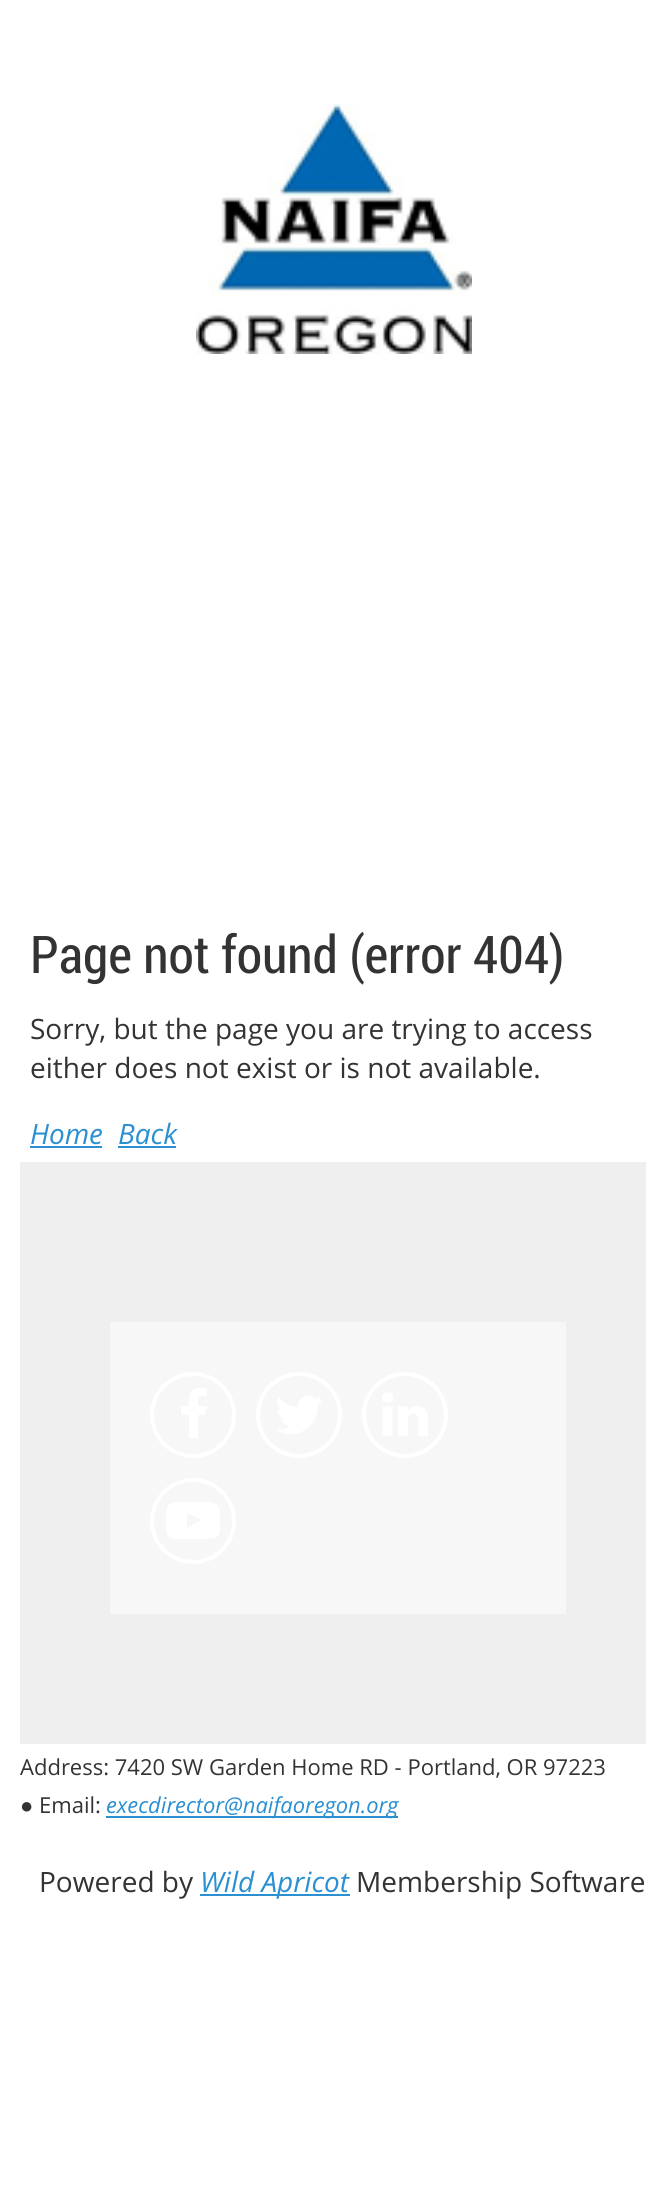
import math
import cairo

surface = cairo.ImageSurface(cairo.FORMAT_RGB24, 665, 2190)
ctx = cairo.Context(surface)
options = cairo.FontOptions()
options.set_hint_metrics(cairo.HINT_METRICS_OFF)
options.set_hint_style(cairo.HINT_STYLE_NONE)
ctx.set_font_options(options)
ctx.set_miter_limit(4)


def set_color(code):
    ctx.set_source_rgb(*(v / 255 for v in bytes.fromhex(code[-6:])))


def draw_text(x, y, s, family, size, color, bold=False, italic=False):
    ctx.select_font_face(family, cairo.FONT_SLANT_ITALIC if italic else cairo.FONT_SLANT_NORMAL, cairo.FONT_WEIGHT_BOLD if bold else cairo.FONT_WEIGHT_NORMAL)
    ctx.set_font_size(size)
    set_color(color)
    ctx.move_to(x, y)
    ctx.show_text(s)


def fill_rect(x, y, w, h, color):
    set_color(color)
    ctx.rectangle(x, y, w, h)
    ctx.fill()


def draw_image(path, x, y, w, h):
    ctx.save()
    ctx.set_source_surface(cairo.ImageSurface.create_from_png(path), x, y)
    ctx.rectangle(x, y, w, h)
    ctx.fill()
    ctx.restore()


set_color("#ffffff")
ctx.paint()
draw_image("assets/img1.png", 196, 104, 276, 250)
draw_text(30, 973, "Page not found (error 404)", "Roboto Condensed", 52, "#333333")
draw_text(30, 1039, "Sorry, but the page you are trying to access", "Open Sans", 28, "#333333")
draw_text(30, 1078, "either does not exist or is not available.", "Open Sans", 28, "#333333")
draw_text(30, 1144, "Home", "Open Sans", 28, "#2b90d1", italic=True)
fill_rect(30, 1146, 72, 2, "#2b90d1")
draw_text(118, 1144, "Back", "Open Sans", 28, "#2b90d1", italic=True)
fill_rect(118, 1146, 58, 2, "#2b90d1")
fill_rect(20, 1162, 626, 582, "#efefef")
fill_rect(110, 1322, 456, 292, "#f7f7f7")
ctx.new_path()
ctx.arc(193, 1415, 41, 0, 2 * math.pi)
set_color("#ffffff")
ctx.set_line_width(4)
ctx.stroke()
ctx.new_path()
ctx.move_to(207, 1388)
ctx.line_to(207, 1396)
ctx.curve_to(197, 1396, 198, 1396, 198, 1406)
ctx.line_to(207, 1406)
ctx.line_to(205, 1415)
ctx.line_to(198, 1415)
ctx.line_to(198, 1438)
ctx.line_to(189, 1438)
ctx.line_to(189, 1415)
ctx.line_to(181, 1415)
ctx.line_to(181, 1406)
ctx.line_to(189, 1406)
ctx.line_to(189, 1397)
ctx.curve_to(190, 1388, 199, 1387, 207, 1388)
ctx.close_path()
ctx.fill()
ctx.arc(299, 1415, 41, 0, 2 * math.pi)
ctx.stroke()
draw_image("assets/img2.png", 277, 1395, 45, 39)
ctx.arc(405, 1415, 41, 0, 2 * math.pi)
ctx.stroke()
draw_image("assets/img3.png", 382, 1392, 46, 44)
ctx.arc(193, 1521, 41, 0, 2 * math.pi)
ctx.stroke()
ctx.new_path()
ctx.move_to(187, 1528)
ctx.line_to(202, 1520)
ctx.line_to(187, 1513)
ctx.close_path()
ctx.move_to(193, 1502)
ctx.line_to(209, 1502)
ctx.curve_to(221, 1503, 220, 1509, 220, 1521)
ctx.curve_to(220, 1535, 220, 1539, 208, 1539)
ctx.line_to(178, 1539)
ctx.curve_to(165, 1539, 166, 1532, 166, 1521)
ctx.curve_to(166, 1507, 166, 1503, 178, 1502)
ctx.close_path()
ctx.fill()
draw_text(20, 1775, "Address: 7420 SW Garden Home RD - Portland, OR 97223", "Open Sans", 22, "#333333")
draw_text(20, 1813, "●", "Liberation Serif", 22, "#333333")
draw_text(39, 1813, "Email:", "Open Sans", 22, "#333333")
fill_rect(106, 1816, 292, 2, "#2b90d1")
draw_text(106, 1813, "execdirector@naifaoregon.org", "Open Sans", 22, "#2b90d1", italic=True)
draw_text(39, 1892, "Powered by", "Open Sans", 28, "#333333")
fill_rect(200, 1894, 150, 2, "#2b90d1")
draw_text(200, 1892, "Wild Apricot", "Open Sans", 28, "#2b90d1", italic=True)
draw_text(356, 1892, "Membership Software", "Open Sans", 28, "#333333")
surface.write_to_png("output.png")
